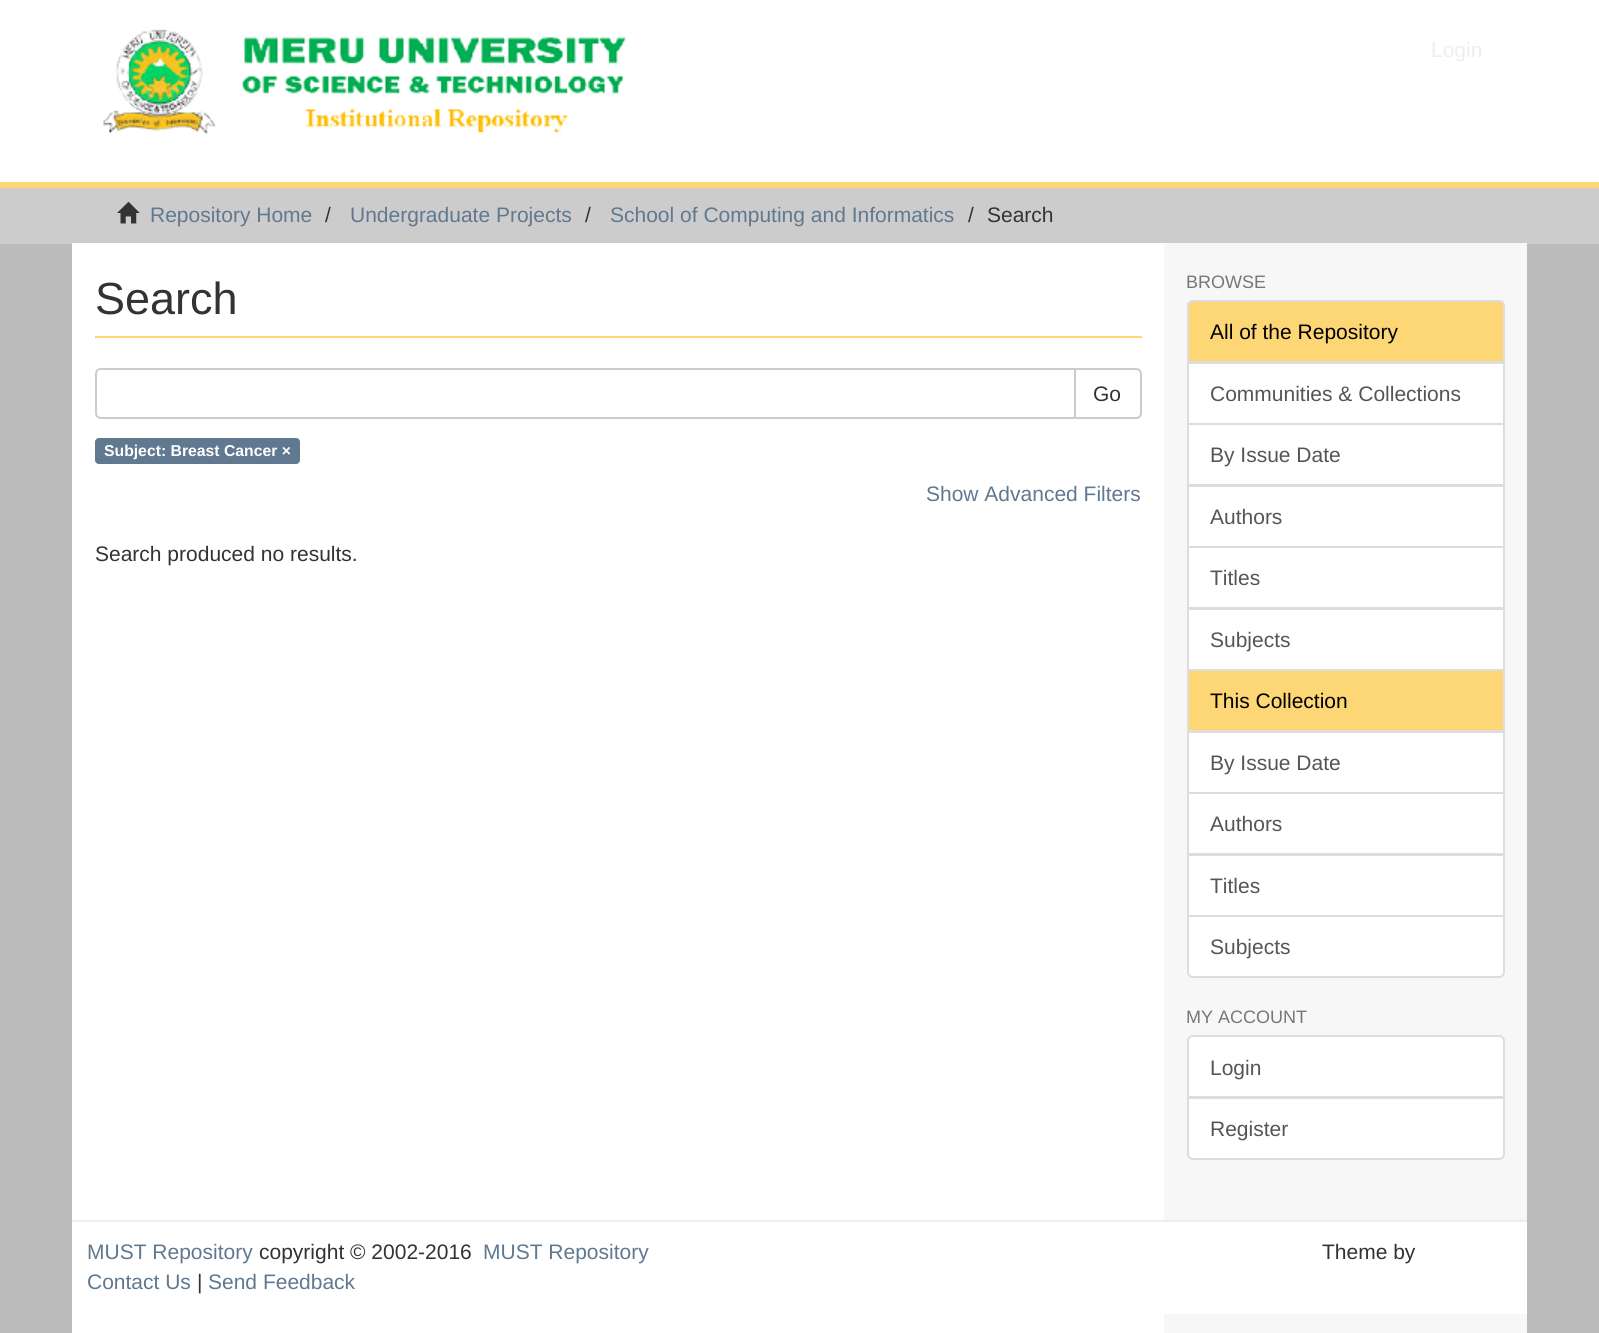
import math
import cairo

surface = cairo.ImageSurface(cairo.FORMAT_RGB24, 1599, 1333)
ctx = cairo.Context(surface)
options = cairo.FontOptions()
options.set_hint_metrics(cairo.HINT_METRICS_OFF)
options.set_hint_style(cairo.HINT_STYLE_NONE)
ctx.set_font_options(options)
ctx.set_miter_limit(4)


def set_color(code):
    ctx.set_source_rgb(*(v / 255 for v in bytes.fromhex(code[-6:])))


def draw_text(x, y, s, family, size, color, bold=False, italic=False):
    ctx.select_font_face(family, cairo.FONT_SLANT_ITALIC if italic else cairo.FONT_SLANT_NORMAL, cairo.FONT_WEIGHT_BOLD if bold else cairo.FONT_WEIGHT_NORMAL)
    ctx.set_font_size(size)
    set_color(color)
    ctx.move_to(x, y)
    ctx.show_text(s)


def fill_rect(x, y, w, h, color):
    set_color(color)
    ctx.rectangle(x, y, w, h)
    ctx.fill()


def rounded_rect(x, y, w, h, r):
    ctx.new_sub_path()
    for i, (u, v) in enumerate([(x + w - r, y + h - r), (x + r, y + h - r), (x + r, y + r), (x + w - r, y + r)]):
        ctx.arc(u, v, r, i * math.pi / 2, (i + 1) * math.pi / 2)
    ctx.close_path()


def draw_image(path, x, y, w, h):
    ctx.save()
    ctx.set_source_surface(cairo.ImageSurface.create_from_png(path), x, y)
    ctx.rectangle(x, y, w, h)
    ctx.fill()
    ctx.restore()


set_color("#bbbbbb")
ctx.paint()
fill_rect(0, 0, 1599, 182, "#ffffff")
fill_rect(0, 182, 1599, 6, "#fdd676")
draw_image("assets/img1.png", 103, 29, 523, 105)
draw_text(1431, 57, "Login", "Liberation Sans", 21, "#eeeeee")
fill_rect(0, 188, 1599, 56, "#cccccc")
draw_image("assets/img2.png", 117, 201, 23, 23)
draw_text(150, 222, "Repository Home", "Liberation Sans", 21, "#607890")
draw_text(325, 222, "/", "Liberation Sans", 21, "#333333")
draw_text(350, 222, "Undergraduate Projects", "Liberation Sans", 21, "#607890")
draw_text(585, 222, "/", "Liberation Sans", 21, "#333333")
draw_text(610, 222, "School of Computing and Informatics", "Liberation Sans", 21, "#607890")
draw_text(968, 222, "/", "Liberation Sans", 21, "#333333")
draw_text(987, 222, "Search", "Liberation Sans", 21, "#333333")
fill_rect(72, 243, 1092, 1090, "#ffffff")
fill_rect(95, 336, 1047, 2, "#fdd676")
draw_text(95, 314, "Search", "Liberation Sans", 45, "#333333")
ctx.new_path()
ctx.move_to(1075, 369)
ctx.line_to(1136, 369)
ctx.curve_to(1139, 369, 1141, 371, 1141, 374)
ctx.line_to(1141, 413)
ctx.curve_to(1141, 416, 1139, 418, 1136, 418)
ctx.line_to(1075, 418)
ctx.close_path()
set_color("#cccccc")
ctx.stroke()
set_color("#ffffff")
ctx.new_path()
ctx.move_to(101, 369)
ctx.line_to(1075, 369)
ctx.line_to(1075, 418)
ctx.line_to(101, 418)
ctx.curve_to(98, 418, 96, 416, 96, 413)
ctx.line_to(96, 374)
ctx.curve_to(96, 371, 98, 369, 101, 369)
ctx.close_path()
ctx.fill_preserve()
set_color("#cccccc")
ctx.stroke()
draw_text(1093, 401, "Go", "Liberation Sans", 21, "#333333")
set_color("#607890")
rounded_rect(95, 438, 205, 26, 4)
ctx.fill()
draw_text(104, 456, "Subject: Breast Cancer ×", "Liberation Sans", 15.75, "#ffffff", bold=True)
draw_text(926, 501, "Show Advanced Filters", "Liberation Sans", 21, "#607890")
draw_text(95, 561, "Search produced no results.", "Liberation Sans", 21, "#333333")
fill_rect(1164, 243, 363, 1090, "#f7f7f7")
draw_text(1186, 288, "BROWSE", "Liberation Sans", 18, "#777777")
set_color("#ffffff")
ctx.rectangle(1188, 363, 316, 61)
ctx.fill_preserve()
set_color("#dddddd")
ctx.stroke()
set_color("#fdd676")
ctx.new_path()
ctx.move_to(1193, 301)
ctx.line_to(1499, 301)
ctx.curve_to(1502, 301, 1504, 303, 1504, 306)
ctx.line_to(1504, 362)
ctx.line_to(1188, 362)
ctx.line_to(1188, 306)
ctx.curve_to(1188, 303, 1190, 301, 1193, 301)
ctx.close_path()
ctx.fill_preserve()
set_color("#dddddd")
ctx.stroke()
draw_text(1210, 339, "All of the Repository", "Liberation Sans", 21, "#000000")
draw_text(1210, 401, "Communities & Collections", "Liberation Sans", 21, "#555555")
set_color("#ffffff")
ctx.rectangle(1188, 424, 316, 61)
ctx.fill_preserve()
set_color("#dddddd")
ctx.stroke()
draw_text(1210, 462, "By Issue Date", "Liberation Sans", 21, "#555555")
set_color("#ffffff")
ctx.rectangle(1188, 486, 316, 61)
ctx.fill_preserve()
set_color("#dddddd")
ctx.stroke()
draw_text(1210, 524, "Authors", "Liberation Sans", 21, "#555555")
set_color("#ffffff")
ctx.rectangle(1188, 547, 316, 61)
ctx.fill_preserve()
set_color("#dddddd")
ctx.stroke()
draw_text(1210, 585, "Titles", "Liberation Sans", 21, "#555555")
set_color("#ffffff")
ctx.rectangle(1188, 609, 316, 61)
ctx.fill_preserve()
set_color("#dddddd")
ctx.stroke()
draw_text(1210, 647, "Subjects", "Liberation Sans", 21, "#555555")
set_color("#ffffff")
ctx.rectangle(1188, 732, 316, 61)
ctx.fill_preserve()
set_color("#dddddd")
ctx.stroke()
set_color("#fdd676")
ctx.rectangle(1188, 670, 316, 61)
ctx.fill_preserve()
set_color("#dddddd")
ctx.stroke()
draw_text(1210, 708, "This Collection", "Liberation Sans", 21, "#000000")
draw_text(1210, 770, "By Issue Date", "Liberation Sans", 21, "#555555")
set_color("#ffffff")
ctx.rectangle(1188, 793, 316, 61)
ctx.fill_preserve()
set_color("#dddddd")
ctx.stroke()
draw_text(1210, 831, "Authors", "Liberation Sans", 21, "#555555")
set_color("#ffffff")
ctx.rectangle(1188, 855, 316, 61)
ctx.fill_preserve()
set_color("#dddddd")
ctx.stroke()
draw_text(1210, 893, "Titles", "Liberation Sans", 21, "#555555")
set_color("#ffffff")
ctx.new_path()
ctx.move_to(1188, 916)
ctx.line_to(1504, 916)
ctx.line_to(1504, 972)
ctx.curve_to(1504, 975, 1502, 977, 1499, 977)
ctx.line_to(1193, 977)
ctx.curve_to(1190, 977, 1188, 975, 1188, 972)
ctx.close_path()
ctx.fill_preserve()
set_color("#dddddd")
ctx.stroke()
draw_text(1210, 954, "Subjects", "Liberation Sans", 21, "#555555")
draw_text(1186, 1023, "MY ACCOUNT", "Liberation Sans", 18, "#777777")
set_color("#ffffff")
ctx.new_path()
ctx.move_to(1193, 1036)
ctx.line_to(1499, 1036)
ctx.curve_to(1502, 1036, 1504, 1038, 1504, 1041)
ctx.line_to(1504, 1097)
ctx.line_to(1188, 1097)
ctx.line_to(1188, 1041)
ctx.curve_to(1188, 1038, 1190, 1036, 1193, 1036)
ctx.close_path()
ctx.fill_preserve()
set_color("#dddddd")
ctx.stroke()
draw_text(1210, 1075, "Login", "Liberation Sans", 21, "#555555")
set_color("#ffffff")
ctx.new_path()
ctx.move_to(1188, 1098)
ctx.line_to(1504, 1098)
ctx.line_to(1504, 1154)
ctx.curve_to(1504, 1157, 1502, 1159, 1499, 1159)
ctx.line_to(1193, 1159)
ctx.curve_to(1190, 1159, 1188, 1157, 1188, 1154)
ctx.close_path()
ctx.fill_preserve()
set_color("#dddddd")
ctx.stroke()
draw_text(1210, 1136, "Register", "Liberation Sans", 21, "#555555")
fill_rect(72, 1220, 1455, 2, "#eeeeee")
draw_text(87, 1259, "MUST Repository", "Liberation Sans", 21, "#607890")
draw_text(259, 1259, "copyright © 2002-2016", "Liberation Sans", 21, "#333333")
draw_text(483, 1259, "MUST Repository", "Liberation Sans", 21, "#607890")
draw_text(87, 1289, "Contact Us", "Liberation Sans", 21, "#607890")
draw_text(197, 1289, "|", "Liberation Sans", 21, "#333333")
draw_text(208, 1289, "Send Feedback", "Liberation Sans", 21, "#607890")
fill_rect(1164, 1222, 363, 92, "#ffffff")
draw_text(1322, 1259, "Theme by", "Liberation Sans", 21, "#333333")
surface.write_to_png("output.png")
